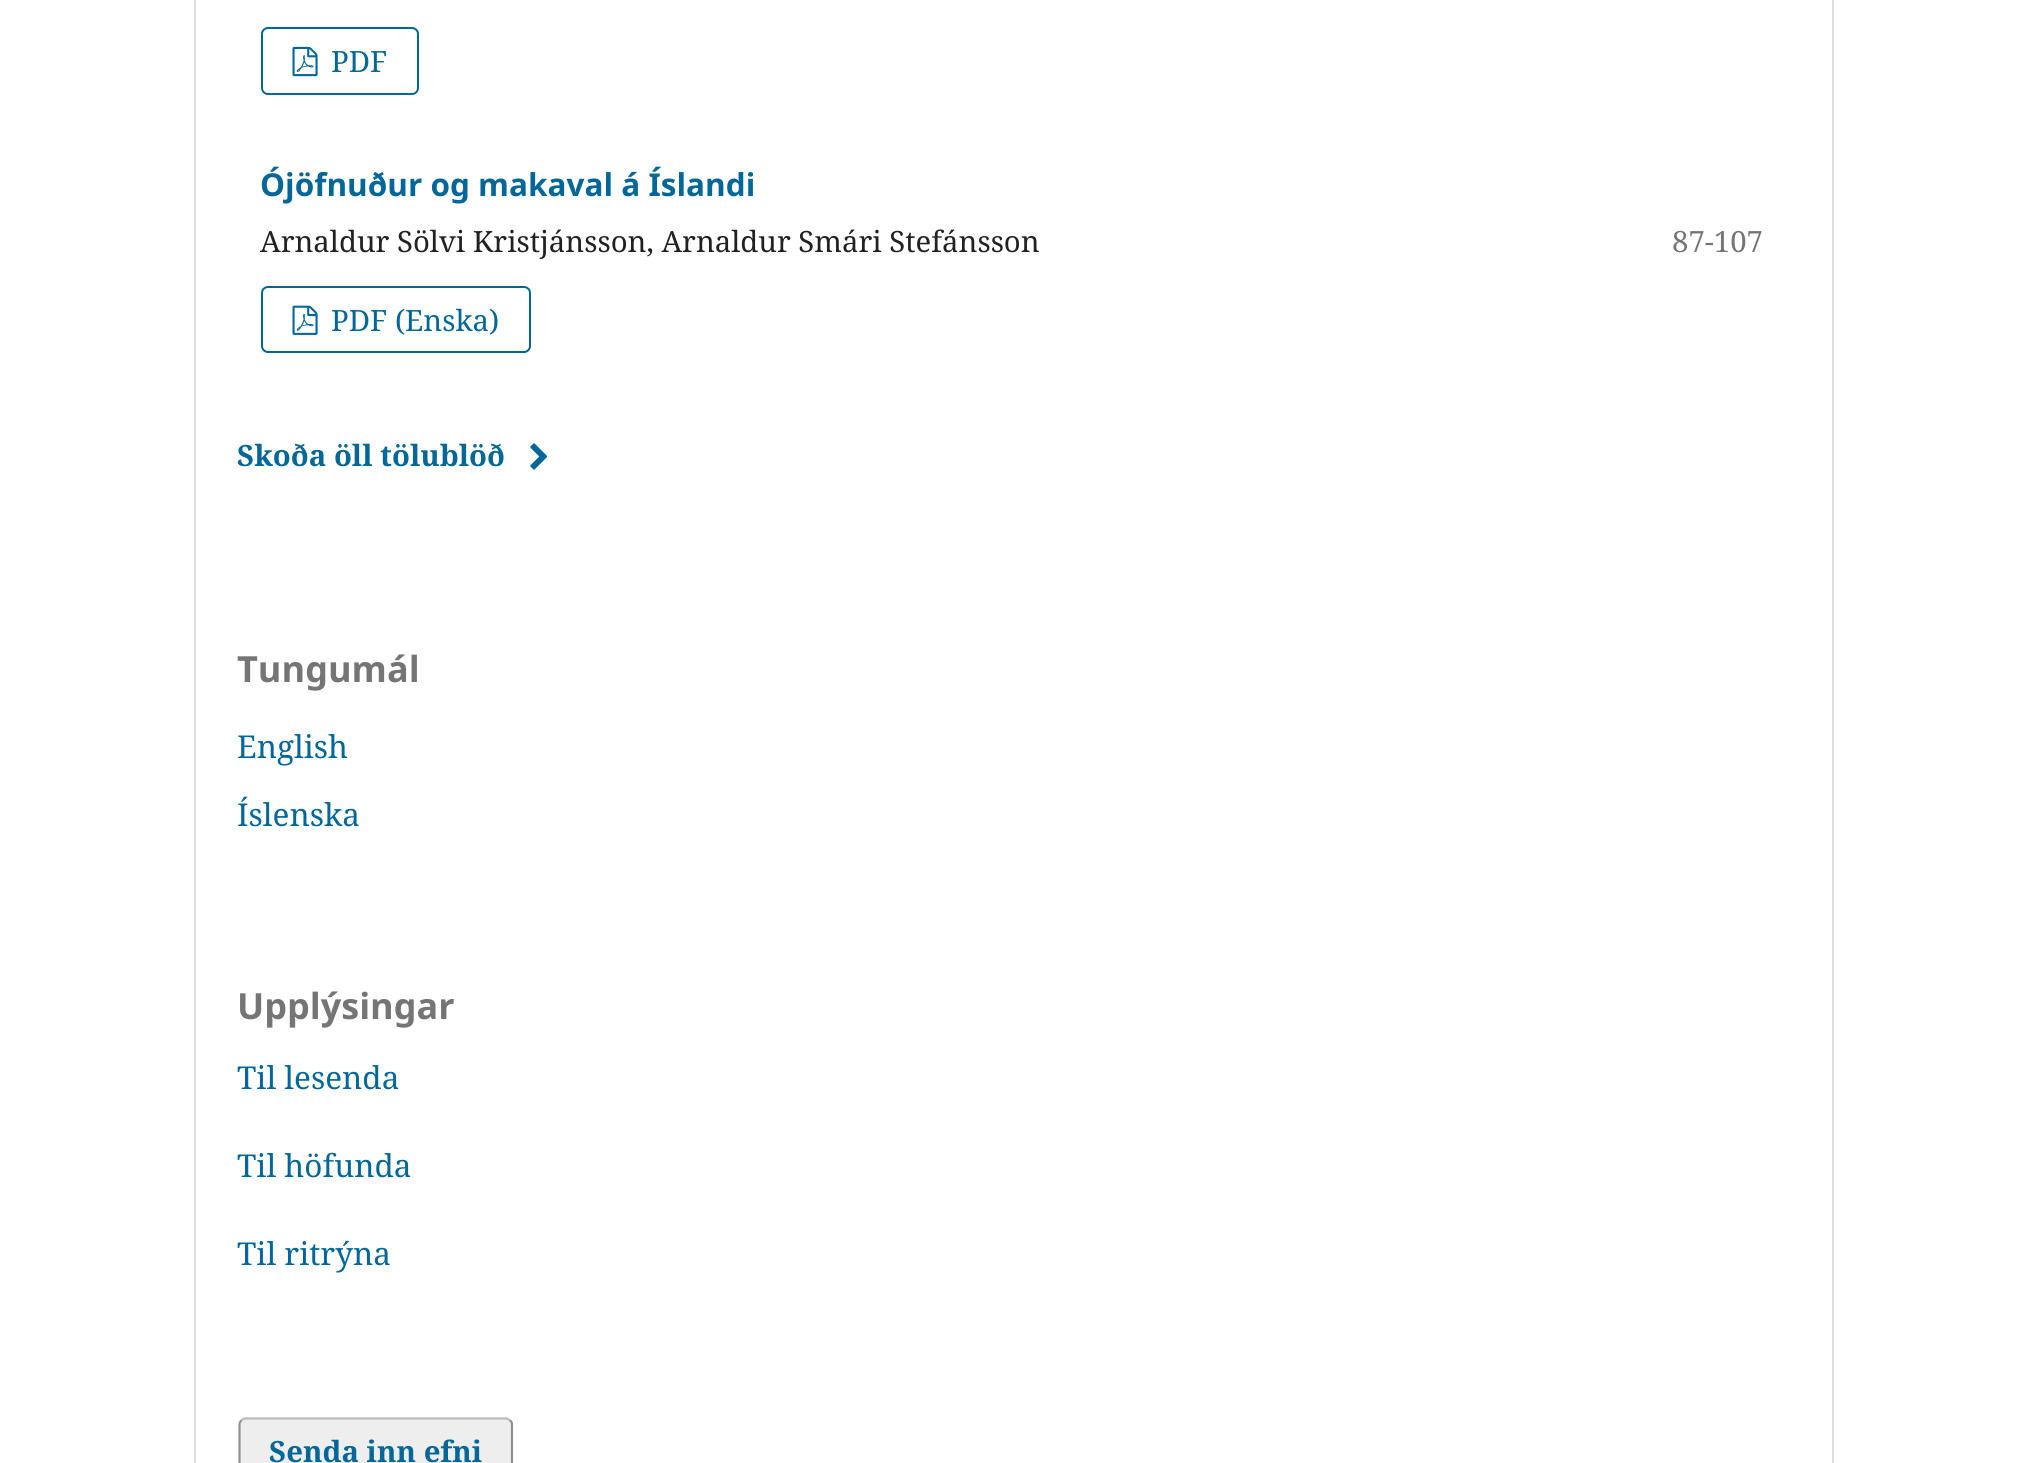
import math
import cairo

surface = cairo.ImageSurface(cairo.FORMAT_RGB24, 2022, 1463)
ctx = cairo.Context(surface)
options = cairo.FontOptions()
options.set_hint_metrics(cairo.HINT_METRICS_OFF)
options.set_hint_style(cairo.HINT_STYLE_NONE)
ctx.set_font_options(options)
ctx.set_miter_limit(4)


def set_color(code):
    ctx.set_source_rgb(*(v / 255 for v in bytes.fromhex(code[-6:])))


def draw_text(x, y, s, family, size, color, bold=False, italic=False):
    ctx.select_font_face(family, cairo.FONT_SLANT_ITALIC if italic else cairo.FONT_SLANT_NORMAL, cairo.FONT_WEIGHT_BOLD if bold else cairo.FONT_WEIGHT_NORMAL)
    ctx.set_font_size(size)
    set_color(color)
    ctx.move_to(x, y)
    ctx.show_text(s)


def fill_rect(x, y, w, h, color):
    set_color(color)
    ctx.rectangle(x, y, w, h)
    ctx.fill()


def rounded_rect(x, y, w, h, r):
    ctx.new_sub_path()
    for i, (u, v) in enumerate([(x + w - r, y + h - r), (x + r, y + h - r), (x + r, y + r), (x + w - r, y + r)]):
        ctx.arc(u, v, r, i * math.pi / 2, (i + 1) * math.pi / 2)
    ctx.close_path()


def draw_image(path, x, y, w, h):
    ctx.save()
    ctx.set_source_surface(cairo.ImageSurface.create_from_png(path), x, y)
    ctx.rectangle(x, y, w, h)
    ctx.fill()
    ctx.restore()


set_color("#ffffff")
ctx.paint()
fill_rect(194, 0, 2, 1463, "#dddddd")
rounded_rect(262, 28, 156, 66, 6)
set_color("#006798")
ctx.stroke()
draw_image("assets/img1.png", 292, 46, 26, 31)
draw_text(331, 72, "PDF", "Noto Serif", 29.3, "#006798")
draw_text(260, 196, "Ójöfnuður og makaval á Íslandi", "Noto Sans", 31.5, "#006798", bold=True)
draw_text(260, 252, "Arnaldur Sölvi Kristjánsson, Arnaldur Smári Stefánsson", "Noto Serif", 29.3, "#212121")
draw_text(1672, 252, "87-107", "Noto Serif", 29.3, "#757575")
rounded_rect(262, 287, 268, 65, 6)
set_color("#006798")
ctx.stroke()
draw_image("assets/img2.png", 292, 305, 26, 30)
draw_text(331, 331, "PDF (Enska)", "Noto Serif", 29.3, "#006798")
draw_text(237, 466, "Skoða öll tölublöð", "Noto Serif", 29.3, "#006798", bold=True)
draw_image("assets/img3.png", 530, 443, 18, 27)
fill_rect(1832, 0, 2, 1463, "#dddddd")
draw_text(237, 682, "Tungumál", "Noto Sans", 36, "#757575", bold=True)
draw_text(237, 758, "English", "Noto Serif", 31.5, "#006798")
draw_text(237, 826, "Íslenska", "Noto Serif", 31.5, "#006798")
draw_text(237, 1019, "Upplýsingar", "Noto Sans", 36, "#757575", bold=True)
draw_text(237, 1089, "Til lesenda", "Noto Serif", 31.5, "#006798")
draw_text(237, 1177, "Til höfunda", "Noto Serif", 31.5, "#006798")
draw_text(237, 1265, "Til ritrýna", "Noto Serif", 31.5, "#006798")
set_color("#eeeeee")
rounded_rect(239, 1418, 274, 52, 7)
ctx.fill()
ctx.new_path()
ctx.move_to(241.5, 1420.5)
ctx.curve_to(242.5, 1419, 244, 1418.5, 245, 1418.5)
ctx.line_to(507, 1418.5)
ctx.line_to(510, 1420.5)
set_color("#bbbbbb")
ctx.set_line_width(2.2)
ctx.stroke()
ctx.new_path()
ctx.move_to(510, 1420.5)
ctx.curve_to(511.5, 1421.5, 512, 1423, 512, 1424)
ctx.line_to(512, 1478)
ctx.curve_to(512, 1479.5, 511.5, 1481, 510, 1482)
ctx.curve_to(509, 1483.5, 507.5, 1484, 506, 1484)
ctx.line_to(245, 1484)
ctx.curve_to(244, 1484, 242.5, 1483.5, 241.5, 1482)
ctx.curve_to(240, 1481, 239.5, 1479.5, 239.5, 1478)
ctx.line_to(239.5, 1424)
ctx.curve_to(239.5, 1423, 240, 1421.5, 241.5, 1420.5)
ctx.set_source_rgba(0, 0, 0, 0.4)
ctx.stroke()
draw_text(269, 1462, "Senda inn efni", "Noto Serif", 29.3, "#006798", bold=True)
surface.write_to_png("output.png")
